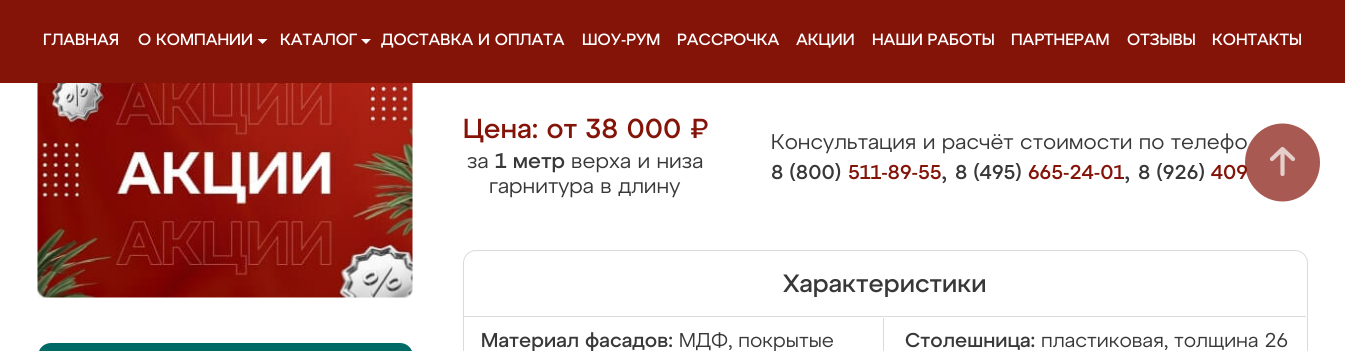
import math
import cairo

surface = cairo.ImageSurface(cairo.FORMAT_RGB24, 1345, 351)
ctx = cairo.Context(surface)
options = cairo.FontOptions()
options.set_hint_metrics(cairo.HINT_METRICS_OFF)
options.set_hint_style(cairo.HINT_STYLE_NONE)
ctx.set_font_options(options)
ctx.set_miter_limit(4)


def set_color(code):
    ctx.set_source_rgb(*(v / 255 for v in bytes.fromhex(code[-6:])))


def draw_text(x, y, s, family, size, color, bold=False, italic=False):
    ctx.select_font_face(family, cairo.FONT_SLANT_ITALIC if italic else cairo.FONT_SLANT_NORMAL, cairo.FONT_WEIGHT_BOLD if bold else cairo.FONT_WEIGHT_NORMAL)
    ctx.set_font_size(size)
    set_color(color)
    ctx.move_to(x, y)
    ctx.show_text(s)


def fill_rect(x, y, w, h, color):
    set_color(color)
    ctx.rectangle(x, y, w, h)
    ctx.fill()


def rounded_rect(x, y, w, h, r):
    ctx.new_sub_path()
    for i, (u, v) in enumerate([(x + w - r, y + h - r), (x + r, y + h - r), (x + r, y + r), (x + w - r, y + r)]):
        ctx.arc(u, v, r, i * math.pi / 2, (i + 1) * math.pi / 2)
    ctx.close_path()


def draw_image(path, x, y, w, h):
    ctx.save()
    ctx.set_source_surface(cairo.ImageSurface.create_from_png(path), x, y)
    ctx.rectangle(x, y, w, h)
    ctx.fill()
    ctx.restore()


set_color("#ffffff")
ctx.paint()
fill_rect(0, 0, 1345, 83, "#841308")
draw_text(43, 45, "ГЛАВНАЯ", "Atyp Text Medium", 16.25, "#ffffff")
draw_text(138, 45, "О КОМПАНИИ", "Atyp Text Medium", 16.25, "#ffffff")
ctx.new_path()
ctx.move_to(262.5, 44)
ctx.line_to(257.5, 39)
ctx.line_to(267.5, 39)
ctx.close_path()
ctx.fill()
draw_text(280, 45, "КАТАЛОГ", "Atyp Text Medium", 16.25, "#ffffff")
ctx.new_path()
ctx.move_to(366, 44)
ctx.line_to(361, 39)
ctx.line_to(371, 39)
ctx.close_path()
ctx.fill()
draw_text(381, 45, "ДОСТАВКА И ОПЛАТА", "Atyp Text Medium", 16.25, "#ffffff")
draw_text(582, 45, "ШОУ-РУМ", "Atyp Text Medium", 16.25, "#ffffff")
draw_text(677, 45, "РАССРОЧКА", "Atyp Text Medium", 16.25, "#ffffff")
draw_text(796, 45, "АКЦИИ", "Atyp Text Medium", 16.25, "#ffffff")
draw_text(872, 45, "НАШИ РАБОТЫ", "Atyp Text Medium", 16.25, "#ffffff")
draw_text(1011, 45, "ПАРТНЕРАМ", "Atyp Text Medium", 16.25, "#ffffff")
draw_text(1127, 45, "ОТЗЫВЫ", "Atyp Text Medium", 16.25, "#ffffff")
draw_text(1212, 45, "КОНТАКТЫ", "Atyp Text Medium", 16.25, "#ffffff")
draw_image("assets/img1.png", 37, 83, 376, 215)
set_color("#006a67")
rounded_rect(38, 343, 375, 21, 13)
ctx.fill()
draw_text(463, 138, "Цена: от 38 000 ₽", "Atyp Text Medium", 27.5, "#841308")
draw_text(467, 168, "за", "Atyp Text", 21.25, "#383838")
draw_text(495, 168, "1 метр", "Atyp Text Medium", 21.25, "#383838")
draw_text(571, 168, "верха и низа", "Atyp Text", 21.25, "#383838")
draw_text(489, 193, "гарнитура в длину", "Atyp Text", 21.25, "#383838")
draw_text(771, 149, "Консультация и расчёт стоимости по телефо", "Atyp Text", 21.25, "#383838")
draw_text(771, 179, "8 (800)", "Atyp Text Medium", 20, "#383838")
draw_text(848, 179, "511-89-55", "Atyp Text Medium", 20, "#841308")
draw_text(941, 179, ",", "Atyp Text", 27.5, "#383838")
draw_text(955, 179, "8 (495)", "Atyp Text Medium", 20, "#383838")
draw_text(1028, 179, "665-24-01", "Atyp Text Medium", 20, "#841308")
draw_text(1124, 179, ",", "Atyp Text", 27.5, "#383838")
draw_text(1138, 179, "8 (926)", "Atyp Text Medium", 20, "#383838")
draw_text(1211, 179, "409", "Atyp Text Medium", 20, "#841308")
rounded_rect(463.5, 250.5, 844, 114, 12.5)
set_color("#dbdbdb")
ctx.set_line_width(1)
ctx.stroke()
fill_rect(464, 316, 842, 1, "#dbdbdb")
draw_text(783, 292, "Характеристики", "Atyp Text Medium", 25, "#383838")
fill_rect(883, 318, 1, 33, "#dbdbdb")
draw_text(481, 347, "Материал фасадов:", "Atyp Text Medium", 20, "#383838")
draw_text(679, 347, "МДФ, покрытые", "Atyp Text", 20, "#383838")
draw_text(905, 347, "Столешница:", "Atyp Text Medium", 20, "#383838")
draw_text(1041, 347, "пластиковая, толщина 26", "Atyp Text", 20, "#383838")
ctx.set_source_rgba(0.518, 0.075, 0.031, 0.7)
ctx.new_path()
ctx.move_to(1282.5, 123.5)
ctx.curve_to(1303, 123.5, 1320, 141, 1320, 162.5)
ctx.curve_to(1320, 184, 1303, 201.5, 1282.5, 201.5)
ctx.curve_to(1262, 201.5, 1245, 184, 1245, 162.5)
ctx.curve_to(1245, 141, 1262, 123.5, 1282.5, 123.5)
ctx.close_path()
ctx.fill()
ctx.new_path()
ctx.move_to(1282.5, 149)
ctx.line_to(1282.5, 174)
ctx.move_to(1282.5, 149)
ctx.line_to(1272, 159)
ctx.move_to(1282.5, 149)
ctx.line_to(1293, 159)
ctx.set_source_rgba(1, 1, 1, 0.7)
ctx.set_line_width(4.2)
ctx.set_line_cap(cairo.LINE_CAP_ROUND)
ctx.set_line_join(cairo.LINE_JOIN_ROUND)
ctx.stroke()
surface.write_to_png("output.png")
